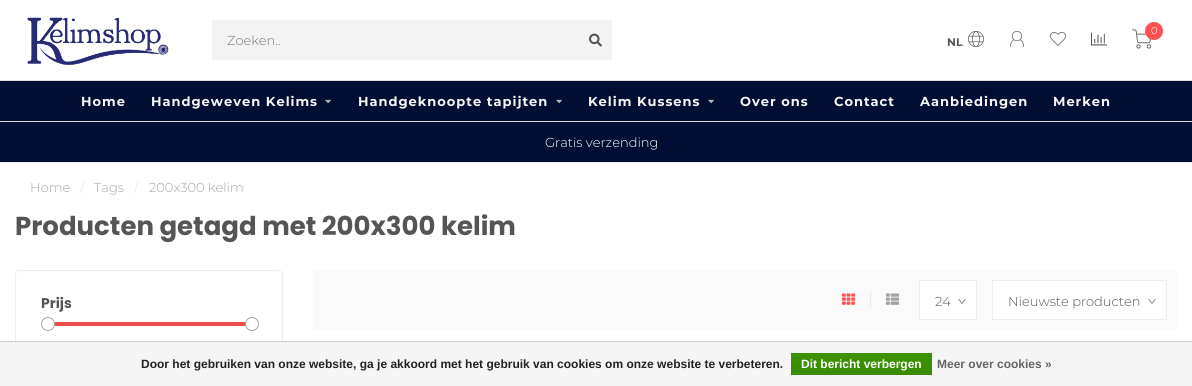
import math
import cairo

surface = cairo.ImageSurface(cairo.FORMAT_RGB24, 1192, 386)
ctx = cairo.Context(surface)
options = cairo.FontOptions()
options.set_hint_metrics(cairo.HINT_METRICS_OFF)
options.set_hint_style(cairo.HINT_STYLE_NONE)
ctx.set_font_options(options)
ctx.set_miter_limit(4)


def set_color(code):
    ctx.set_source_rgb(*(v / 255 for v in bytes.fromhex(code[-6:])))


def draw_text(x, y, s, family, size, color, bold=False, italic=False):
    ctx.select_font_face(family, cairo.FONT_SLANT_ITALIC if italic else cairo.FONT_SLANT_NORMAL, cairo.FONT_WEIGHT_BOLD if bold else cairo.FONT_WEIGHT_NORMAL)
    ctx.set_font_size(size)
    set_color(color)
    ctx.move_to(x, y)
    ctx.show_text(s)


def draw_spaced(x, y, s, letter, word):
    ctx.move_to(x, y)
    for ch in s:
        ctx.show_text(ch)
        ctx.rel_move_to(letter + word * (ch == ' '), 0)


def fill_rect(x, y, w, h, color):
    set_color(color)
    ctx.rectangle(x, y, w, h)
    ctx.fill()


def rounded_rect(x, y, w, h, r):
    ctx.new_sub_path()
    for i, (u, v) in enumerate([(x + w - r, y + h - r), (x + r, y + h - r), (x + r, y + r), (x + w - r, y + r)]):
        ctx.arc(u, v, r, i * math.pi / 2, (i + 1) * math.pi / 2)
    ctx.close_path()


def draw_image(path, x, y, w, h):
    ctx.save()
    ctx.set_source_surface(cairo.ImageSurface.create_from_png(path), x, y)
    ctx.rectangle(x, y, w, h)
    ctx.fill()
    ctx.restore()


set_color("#ffffff")
ctx.paint()
draw_image("assets/img1.png", 27, 17, 142, 48)
fill_rect(212, 20, 400, 40, "#f3f3f3")
draw_text(227, 45, "Zoeken..", "Montserrat Light", 13, "#757575")
draw_image("assets/img2.png", 589, 33, 13, 14)
draw_image("assets/img3.png", 1132, 29, 19, 20)
set_color("#fc5151")
ctx.arc(1154, 31, 9, 0, 2 * math.pi)
ctx.fill()
draw_text(1151, 34, "0", "Montserrat Light", 10, "#ffffff")
draw_text(947, 46, "NL", "Montserrat", 11, "#555555", bold=True)
draw_image("assets/img4.png", 968, 31, 16, 16)
draw_image("assets/img5.png", 1010, 31, 14, 16)
draw_image("assets/img6.png", 1050, 32, 16, 14)
draw_image("assets/img7.png", 1091, 32, 16, 14)
fill_rect(0, 81, 1192, 40, "#010e33")
fill_rect(0, 80, 1192, 1, "#dddddd")
fill_rect(0, 121, 1192, 1, "#dddddd")
ctx.set_font_size(13)
set_color("#f5f5f5")
draw_spaced(81, 106, "Home", 1, 0)
draw_spaced(151, 106, "Handgeweven Kelims", 1, 0)
draw_image("assets/img8.png", 325, 99, 6, 5)
draw_spaced(358, 106, "Handgeknoopte tapijten", 1, 0)
draw_image("assets/img8.png", 556, 99, 6, 5)
draw_spaced(588, 106, "Kelim Kussens", 1, 0)
draw_image("assets/img8.png", 708, 99, 6, 5)
draw_spaced(740, 106, "Over ons", 1, 0)
draw_spaced(834, 106, "Contact", 1, 0)
draw_spaced(920, 106, "Aanbiedingen", 1, 0)
draw_spaced(1053, 106, "Merken", 1, 0)
fill_rect(0, 122, 1192, 40, "#010e33")
fill_rect(0, 162, 1192, 1, "#eeeeee")
draw_text(545, 147, "Gratis verzending", "Montserrat Light", 13, "#ffffff")
draw_text(30, 192, "Home", "Montserrat Light", 13, "#a5a5a5")
draw_text(80, 192, "/", "Montserrat Light", 13, "#dddddd")
draw_text(94, 192, "Tags", "Montserrat Light", 13, "#a5a5a5")
draw_text(134, 192, "/", "Montserrat Light", 13, "#dddddd")
draw_text(149, 192, "200x300 kelim", "Montserrat Light", 13, "#a5a5a5")
draw_text(15, 235, "Producten getagd met 200x300 kelim", "Poppins", 26, "#555555", bold=True)
rounded_rect(15.5, 270.5, 267, 91, 4.5)
set_color("#eeeeee")
ctx.set_line_width(1)
ctx.stroke()
draw_text(41, 308, "Prijs", "Poppins", 14, "#555555", bold=True)
fill_rect(51, 322, 195, 4, "#ef4c4c")
set_color("#ffffff")
ctx.new_path()
ctx.arc(48, 324, 6.5, 0, 2 * math.pi)
ctx.fill_preserve()
set_color("#a5a5a5")
ctx.stroke()
set_color("#ffffff")
ctx.arc(252, 324, 6.5, 0, 2 * math.pi)
ctx.fill_preserve()
set_color("#a5a5a5")
ctx.stroke()
fill_rect(313, 270, 864, 60, "#fafafa")
fill_rect(870, 291, 1, 16, "#eaeaea")
draw_image("assets/img9.png", 842, 293, 13, 12)
draw_image("assets/img10.png", 886, 293, 13, 12)
fill_rect(920, 281, 56, 38, "#ffffff")
ctx.new_path()
ctx.move_to(965.5, 299)
ctx.line_to(962, 303.5)
ctx.line_to(958.5, 299)
set_color("#666666")
ctx.set_line_width(0.7)
ctx.stroke()
ctx.rectangle(919.5, 280.5, 57, 39)
set_color("#eeeeee")
ctx.set_line_width(1)
ctx.stroke()
draw_text(935, 306, "24", "Montserrat Light", 13, "#555555")
fill_rect(993, 281, 173, 38, "#ffffff")
ctx.new_path()
ctx.move_to(1155.5, 299)
ctx.line_to(1152, 303.5)
ctx.line_to(1148.5, 299)
set_color("#666666")
ctx.set_line_width(0.7)
ctx.stroke()
ctx.rectangle(992.5, 280.5, 174, 39)
set_color("#eeeeee")
ctx.set_line_width(1)
ctx.stroke()
draw_text(1008, 306, "Nieuwste producten", "Montserrat Light", 13, "#555555")
fill_rect(0, 342, 1192, 44, "#f5f5f5")
fill_rect(0, 341, 1192, 1, "#cccccc")
draw_text(141, 368, "Door het gebruiken van onze website, ga je akkoord met het gebruik van cookies om onze website te verbeteren.", "Liberation Sans", 12, "#222222", bold=True)
gradient = cairo.LinearGradient(862, 353, 862, 375)
gradient.add_color_stop_rgba(0, 0.235, 0.576, 0, 1)
gradient.add_color_stop_rgba(1, 0.224, 0.541, 0, 1)
ctx.set_source(gradient)
ctx.rectangle(791, 353, 141, 22)
ctx.fill()
draw_text(801, 368, "Dit bericht verbergen", "Liberation Sans", 12, "#ffffff", bold=True)
draw_text(937, 368, "Meer over cookies »", "Liberation Sans", 12, "#666666", bold=True)
surface.write_to_png("output.png")
